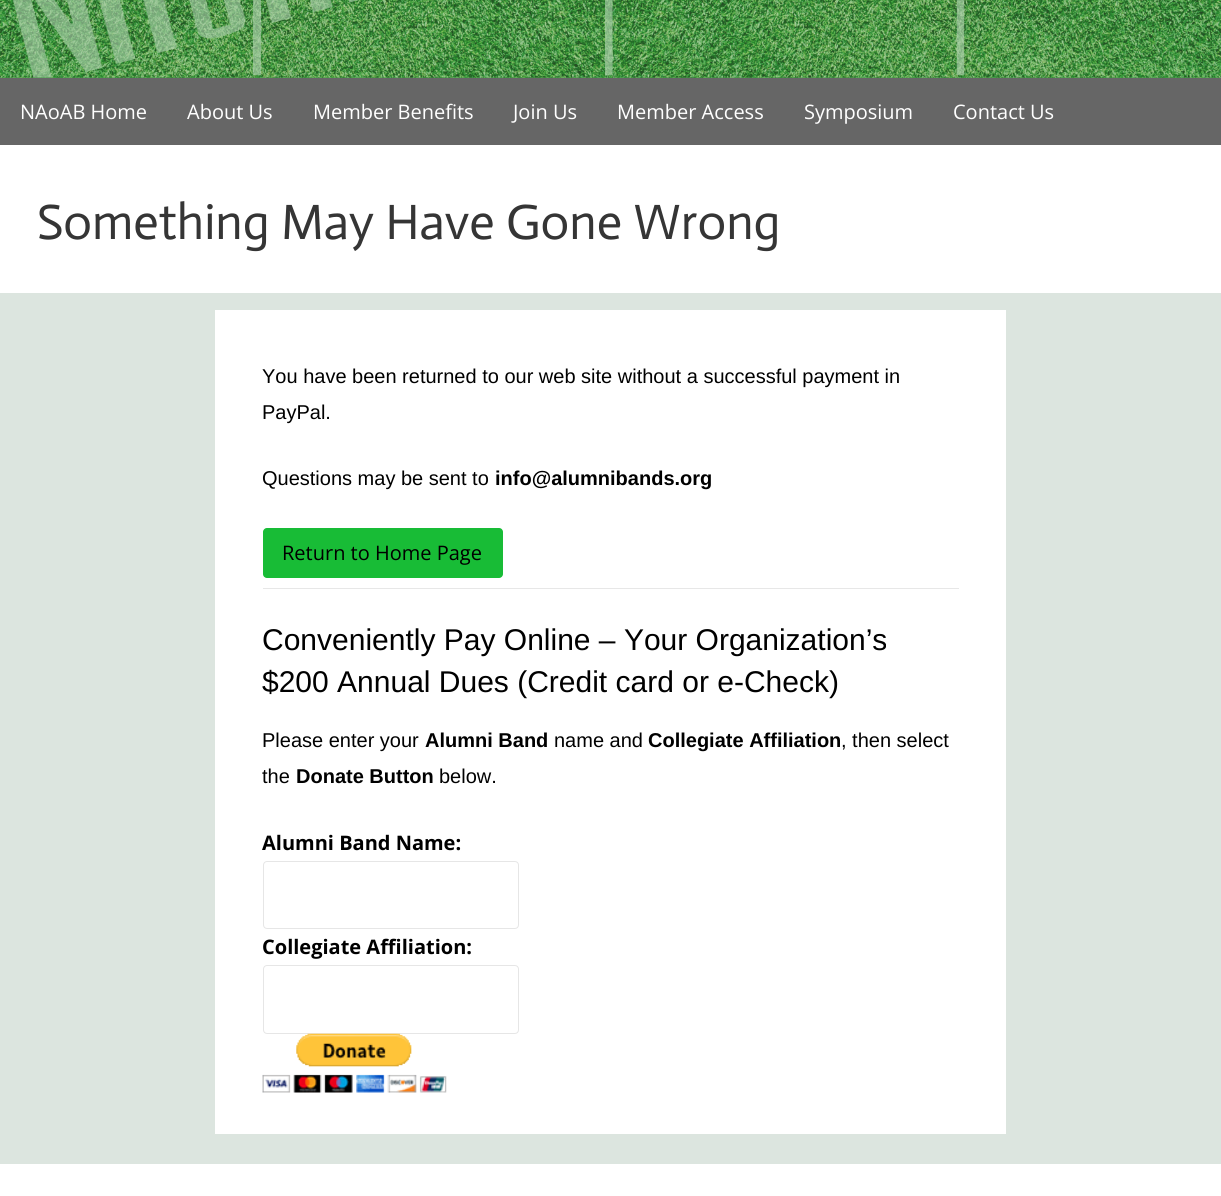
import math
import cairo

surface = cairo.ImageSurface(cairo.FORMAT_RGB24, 1221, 1196)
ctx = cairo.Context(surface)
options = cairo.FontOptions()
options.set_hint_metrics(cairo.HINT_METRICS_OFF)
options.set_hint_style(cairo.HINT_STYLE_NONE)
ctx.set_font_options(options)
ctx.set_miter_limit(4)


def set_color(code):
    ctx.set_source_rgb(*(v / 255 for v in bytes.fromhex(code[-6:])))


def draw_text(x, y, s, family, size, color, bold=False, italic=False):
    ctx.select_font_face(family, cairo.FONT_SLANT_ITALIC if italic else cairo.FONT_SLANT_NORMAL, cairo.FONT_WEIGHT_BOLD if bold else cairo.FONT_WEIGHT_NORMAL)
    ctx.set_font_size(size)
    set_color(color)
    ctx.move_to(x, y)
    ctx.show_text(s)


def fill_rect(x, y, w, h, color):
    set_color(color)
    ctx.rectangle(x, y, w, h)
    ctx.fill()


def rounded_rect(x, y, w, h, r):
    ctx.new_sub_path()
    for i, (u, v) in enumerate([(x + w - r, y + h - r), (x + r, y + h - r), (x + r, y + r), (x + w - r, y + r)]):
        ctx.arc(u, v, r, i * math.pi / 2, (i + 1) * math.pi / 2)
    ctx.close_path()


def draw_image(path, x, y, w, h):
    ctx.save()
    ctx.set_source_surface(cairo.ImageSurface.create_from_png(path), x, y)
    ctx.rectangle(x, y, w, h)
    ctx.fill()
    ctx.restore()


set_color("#dce5df")
ctx.paint()
fill_rect(0, 77, 1221, 1, "#4c984d")
draw_image("assets/img1.png", 0, 0, 1221, 78)
fill_rect(0, 78, 1221, 67, "#666666")
draw_text(20, 119, "NAoAB Home", "Open Sans", 20, "#ffffff")
draw_text(187, 119, "About Us", "Open Sans", 20, "#ffffff")
draw_text(313, 119, "Member Benefits", "Open Sans", 20, "#ffffff")
draw_text(513, 119, "Join Us", "Open Sans", 20, "#ffffff")
draw_text(617, 119, "Member Access", "Open Sans", 20, "#ffffff")
draw_text(804, 119, "Symposium", "Open Sans", 20, "#ffffff")
draw_text(953, 119, "Contact Us", "Open Sans", 20, "#ffffff")
fill_rect(0, 145, 1221, 148, "#ffffff")
draw_text(37, 239, "Something May Have Gone Wrong", "Actor", 50, "#353535")
fill_rect(215, 310, 791, 824, "#ffffff")
draw_text(262, 383, "You have been returned to our web site without a successful payment in", "Liberation Sans", 20, "#000000")
draw_text(262, 419, "PayPal.", "Liberation Sans", 20, "#000000")
draw_text(262, 485, "Questions may be sent to", "Liberation Sans", 20, "#000000")
draw_text(495, 485, "info@alumnibands.org", "Liberation Sans", 20, "#000000", bold=True)
set_color("#18bc36")
rounded_rect(263, 528, 240, 50, 4)
ctx.fill()
draw_text(282, 560, "Return to Home Page", "Open Sans", 20, "#000000")
fill_rect(263, 588, 696, 1, "#e7e7e7")
draw_text(262, 650, "Conveniently Pay Online – Your Organization’s", "Liberation Sans", 30, "#000000")
draw_text(262, 692, "$200 Annual Dues (Credit card or e-Check)", "Liberation Sans", 30, "#000000")
draw_text(262, 747, "Please enter your", "Liberation Sans", 20, "#000000")
draw_text(425, 747, "Alumni Band", "Liberation Sans", 20, "#000000", bold=True)
draw_text(554, 747, "name and", "Liberation Sans", 20, "#000000")
draw_text(648, 747, "Collegiate Affiliation", "Liberation Sans", 20, "#000000", bold=True)
draw_text(841, 747, ", then select", "Liberation Sans", 20, "#000000")
draw_text(262, 783, "the", "Liberation Sans", 20, "#000000")
draw_text(296, 783, "Donate Button", "Liberation Sans", 20, "#000000", bold=True)
draw_text(439, 783, "below.", "Liberation Sans", 20, "#000000")
draw_text(262, 850, "Alumni Band Name:", "Open Sans", 20, "#000000", bold=True)
rounded_rect(263.5, 861.5, 255, 67, 3.5)
set_color("#e6e6e6")
ctx.set_line_width(1)
ctx.stroke()
draw_text(262, 954, "Collegiate Affiliation:", "Open Sans", 20, "#000000", bold=True)
rounded_rect(263.5, 965.5, 255, 68, 3.5)
set_color("#e6e6e6")
ctx.stroke()
draw_image("assets/img2.png", 262, 1033, 185, 60)
fill_rect(0, 1164, 1221, 32, "#ffffff")
surface.write_to_png("output.png")
